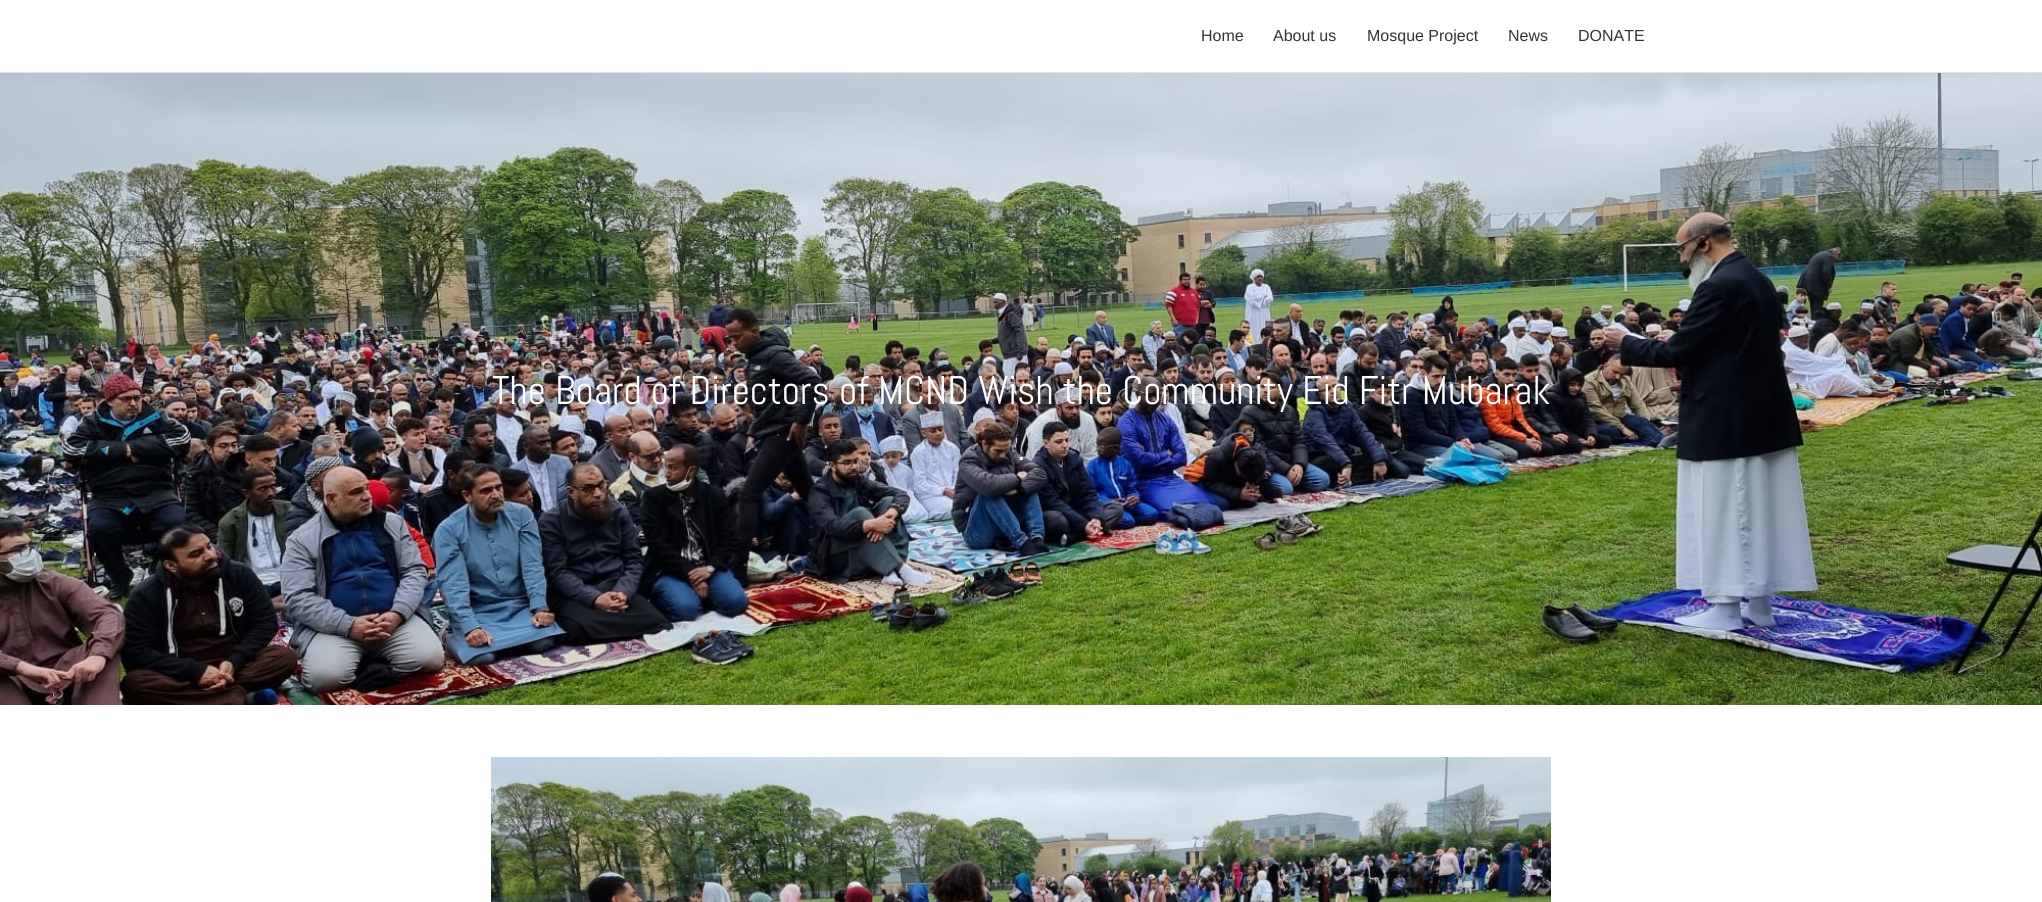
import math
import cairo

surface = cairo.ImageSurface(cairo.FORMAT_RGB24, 2042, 902)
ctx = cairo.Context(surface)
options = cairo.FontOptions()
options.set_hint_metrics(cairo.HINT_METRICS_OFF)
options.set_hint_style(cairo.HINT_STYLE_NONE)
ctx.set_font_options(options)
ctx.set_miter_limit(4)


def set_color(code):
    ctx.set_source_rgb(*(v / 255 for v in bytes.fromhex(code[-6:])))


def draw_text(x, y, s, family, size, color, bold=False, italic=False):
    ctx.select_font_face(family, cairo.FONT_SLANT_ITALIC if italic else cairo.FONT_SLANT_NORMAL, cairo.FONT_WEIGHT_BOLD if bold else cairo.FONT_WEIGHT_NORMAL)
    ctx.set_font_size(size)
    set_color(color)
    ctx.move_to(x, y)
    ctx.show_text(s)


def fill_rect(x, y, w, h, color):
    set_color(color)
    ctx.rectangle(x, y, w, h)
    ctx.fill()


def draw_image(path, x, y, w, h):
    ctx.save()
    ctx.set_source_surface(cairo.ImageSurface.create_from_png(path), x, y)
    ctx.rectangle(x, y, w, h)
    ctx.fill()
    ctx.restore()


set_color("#ffffff")
ctx.paint()
fill_rect(0, 72, 2042, 1, "#e4e4e4")
draw_text(1201, 41, "Home", "Liberation Sans", 16, "#333333")
draw_text(1273, 41, "About us", "Liberation Sans", 16, "#333333")
draw_text(1367, 41, "Mosque Project", "Liberation Sans", 16, "#333333")
draw_text(1508, 41, "News", "Liberation Sans", 16, "#333333")
draw_text(1578, 41, "DONATE", "Liberation Sans", 16, "#333333")
draw_image("assets/img1.png", 0, 73, 2042, 632)
draw_text(492, 404, "The Board of Directors of MCND Wish the Community Eid Fitr Mubarak", "Abel", 40, "#ffffff")
draw_text(1017, 460, ".", "Abel", 40, "#ffffff")
draw_image("assets/img2.png", 491, 757, 1060, 145)
surface.write_to_png("output.png")
